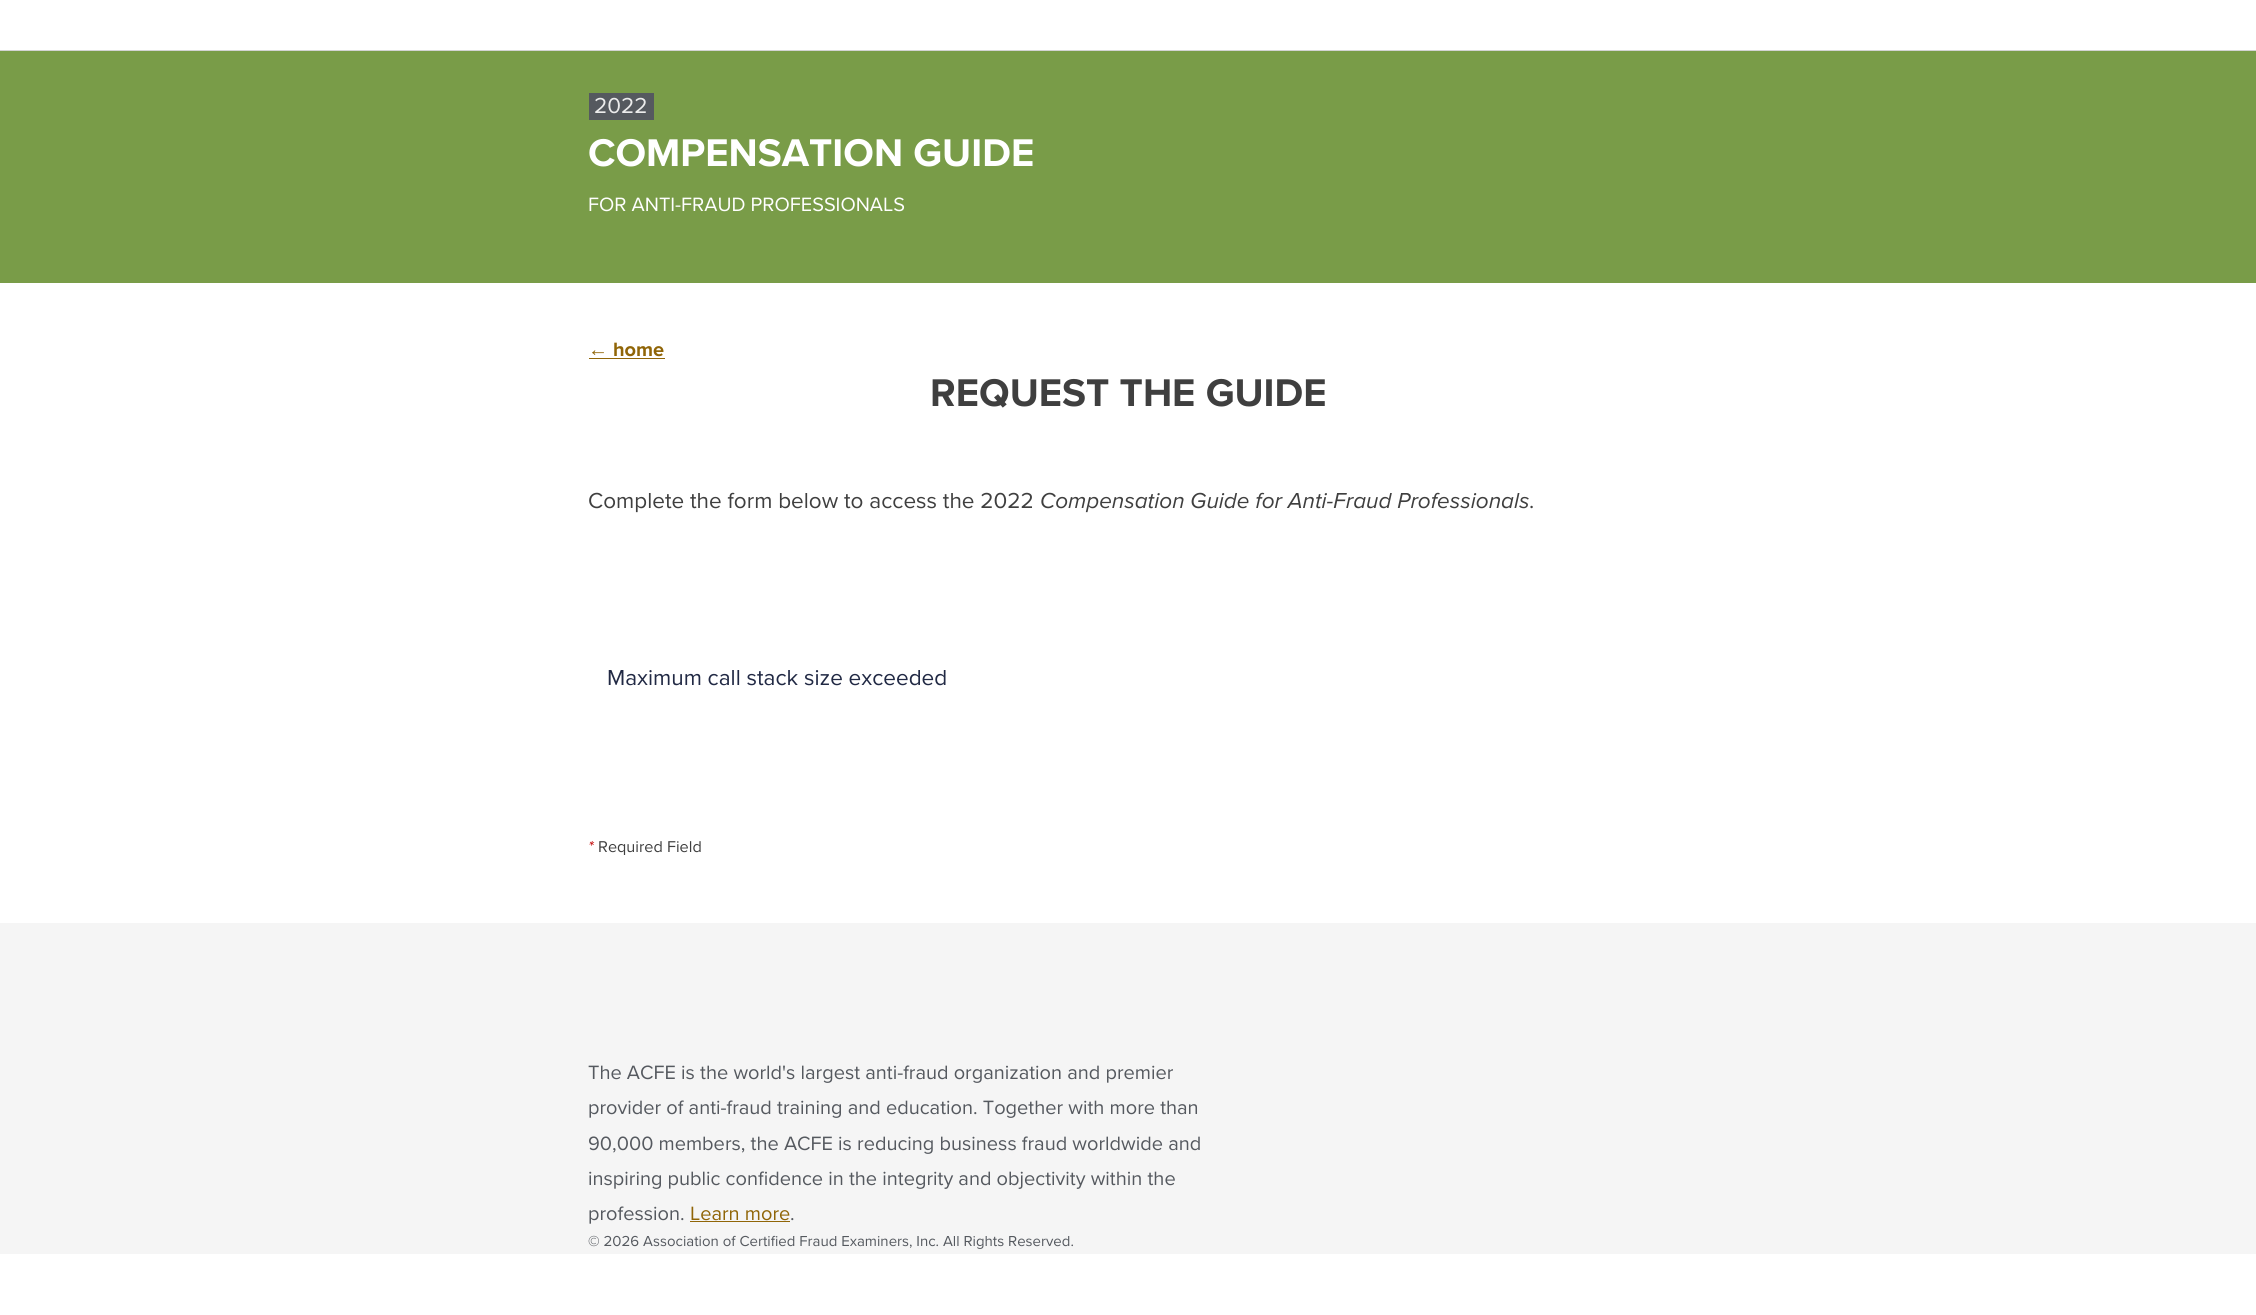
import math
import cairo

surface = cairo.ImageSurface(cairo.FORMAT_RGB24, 2256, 1315)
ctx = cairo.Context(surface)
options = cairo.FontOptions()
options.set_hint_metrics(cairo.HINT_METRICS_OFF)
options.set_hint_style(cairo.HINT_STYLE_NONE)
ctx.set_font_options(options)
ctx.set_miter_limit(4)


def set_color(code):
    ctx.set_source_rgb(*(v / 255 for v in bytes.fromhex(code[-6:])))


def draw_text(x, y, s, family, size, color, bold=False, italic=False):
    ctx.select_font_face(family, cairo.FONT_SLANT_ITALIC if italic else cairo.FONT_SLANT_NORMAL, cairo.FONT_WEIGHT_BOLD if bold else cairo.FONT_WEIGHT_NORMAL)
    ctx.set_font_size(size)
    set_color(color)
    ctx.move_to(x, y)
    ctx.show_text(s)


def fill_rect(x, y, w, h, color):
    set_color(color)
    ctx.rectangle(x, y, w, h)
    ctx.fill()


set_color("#ffffff")
ctx.paint()
fill_rect(0, 50, 2256, 1, "#d3d3d3")
fill_rect(0, 51, 2256, 232, "#799c48")
fill_rect(589, 93, 65, 27, "#55595f")
draw_text(594, 113, "2022", "Proxima Nova", 22.5, "#ececec")
draw_text(588, 166, "COMPENSATION GUIDE", "Proxima Nova", 40, "#ffffff", bold=True)
draw_text(588, 211, "FOR ANTI-FRAUD PROFESSIONALS", "Proxima Nova", 20, "#ffffff")
draw_text(588, 356, "←", "Liberation Sans", 20, "#906507", bold=True)
fill_rect(589, 358, 76, 1, "#906507")
draw_text(613, 356, "home", "Proxima Nova", 20, "#906507", bold=True)
draw_text(930, 406, "REQUEST THE GUIDE", "Proxima Nova", 40, "#3f3f3f", bold=True)
draw_text(588, 508, "Complete the form below to access the 2022", "Proxima Nova", 22.5, "#3f3f3f")
draw_text(1040, 508, "Compensation Guide for Anti-Fraud Professionals", "Proxima Nova", 22.5, "#3f3f3f", italic=True)
draw_text(1529, 508, ".", "Proxima Nova", 22.5, "#3f3f3f")
draw_text(607, 685, "Maximum call stack size exceeded", "Proxima Nova", 22.5, "#212944")
draw_text(588, 852, "*", "Proxima Nova", 16.25, "#c00000", italic=True)
draw_text(598, 852, "Required Field", "Proxima Nova", 16.25, "#3f3f3f")
fill_rect(0, 923, 2256, 331, "#f5f5f5")
draw_text(588, 1079, "The ACFE is the world's largest anti-fraud organization and premier", "Proxima Nova", 20, "#55595f")
draw_text(588, 1114, "provider of anti-fraud training and education. Together with more than", "Proxima Nova", 20, "#55595f")
draw_text(588, 1150, "90,000 members, the ACFE is reducing business fraud worldwide and", "Proxima Nova", 20, "#55595f")
draw_text(588, 1185, "inspiring public confidence in the integrity and objectivity within the", "Proxima Nova", 20, "#55595f")
draw_text(588, 1220, "profession.", "Proxima Nova", 20, "#55595f")
draw_text(690, 1220, "Learn more", "Proxima Nova", 20, "#906507")
draw_text(790, 1220, ".", "Proxima Nova", 20, "#55595f")
fill_rect(690, 1221, 100, 1, "#906507")
draw_text(588, 1246, "© 2026 Association of Certified Fraud Examiners, Inc. All Rights Reserved.", "Proxima Nova", 15, "#55595f")
surface.write_to_png("output.png")
